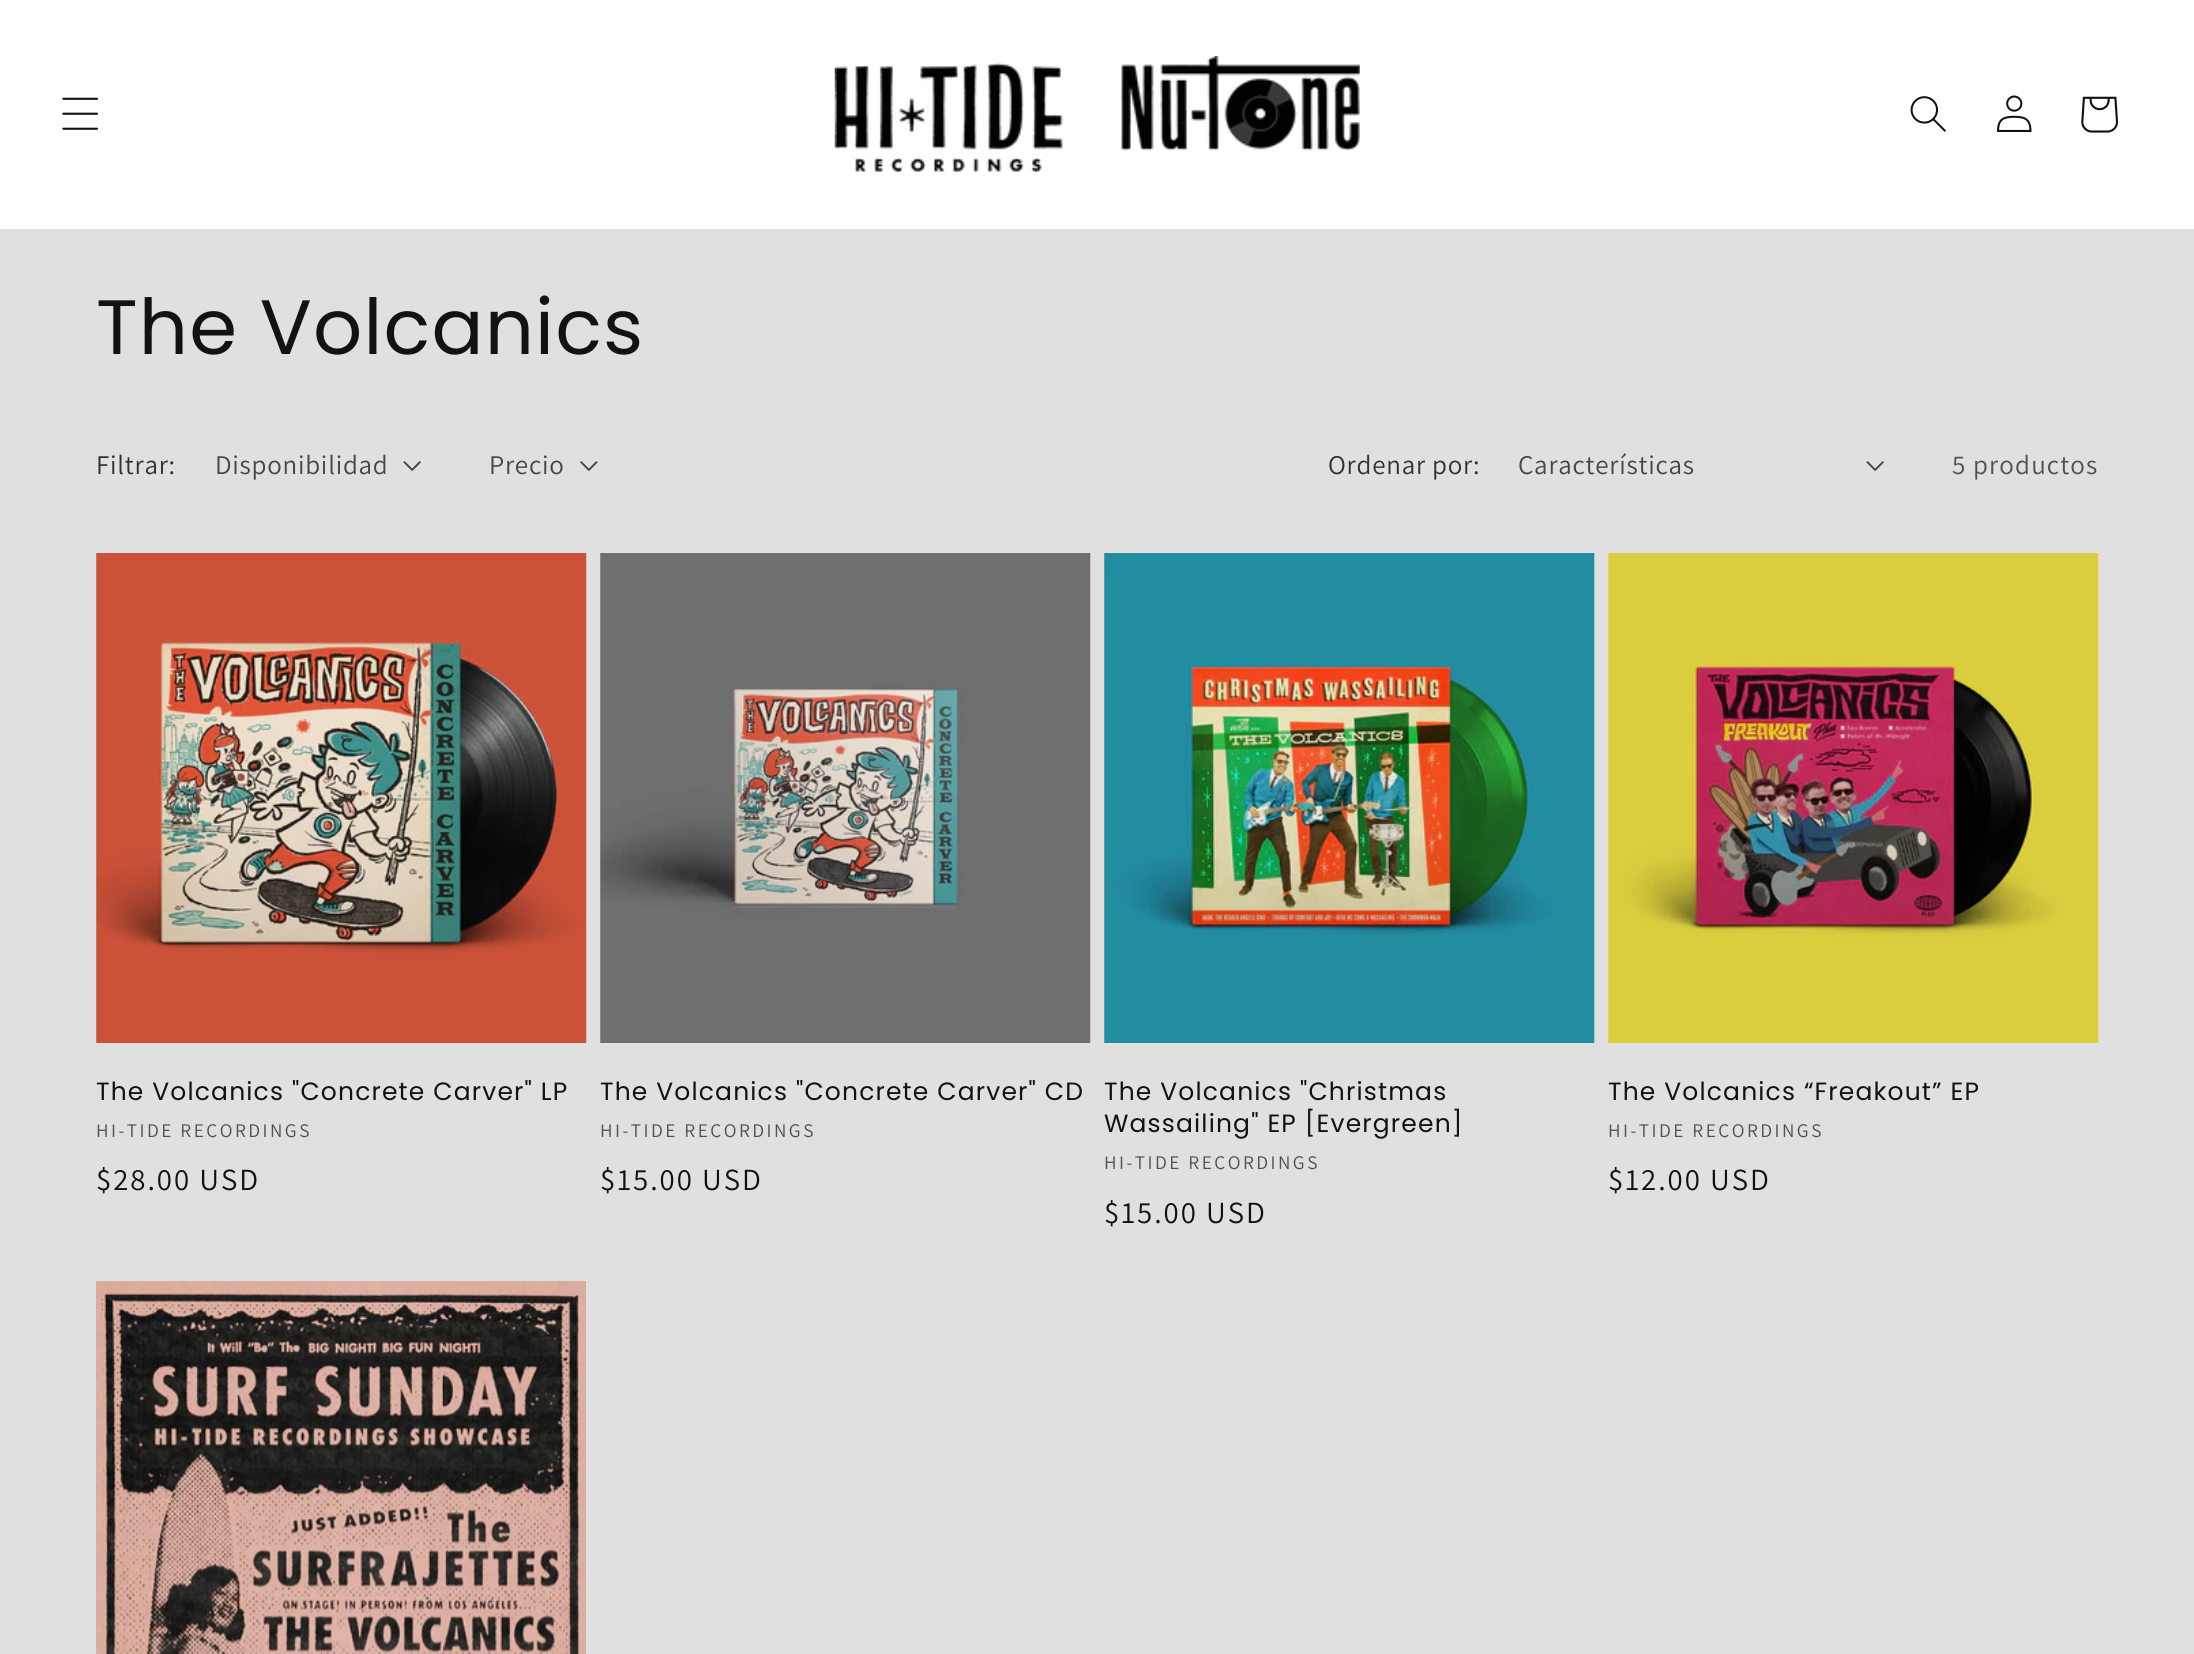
import math
import cairo

surface = cairo.ImageSurface(cairo.FORMAT_RGB24, 2194, 1654)
ctx = cairo.Context(surface)
options = cairo.FontOptions()
options.set_hint_metrics(cairo.HINT_METRICS_OFF)
options.set_hint_style(cairo.HINT_STYLE_NONE)
ctx.set_font_options(options)
ctx.set_miter_limit(4)


def set_color(code):
    ctx.set_source_rgb(*(v / 255 for v in bytes.fromhex(code[-6:])))


def draw_spaced(x, y, s, letter, word):
    ctx.move_to(x, y)
    for ch in s:
        ctx.show_text(ch)
        ctx.rel_move_to(letter + word * (ch == ' '), 0)


def fill_rect(x, y, w, h, color):
    set_color(color)
    ctx.rectangle(x, y, w, h)
    ctx.fill()


def draw_image(path, x, y, w, h):
    ctx.save()
    ctx.set_source_surface(cairo.ImageSurface.create_from_png(path), x, y)
    ctx.rectangle(x, y, w, h)
    ctx.fill()
    ctx.restore()


set_color("#e0e0e0")
ctx.paint()
fill_rect(0, 0, 2194, 229, "#ffffff")
draw_image("assets/img1.png", 62, 97, 36, 33)
draw_image("assets/img2.png", 834, 56, 526, 116)
draw_image("assets/img3.png", 1910, 96, 36, 36)
draw_image("assets/img4.png", 1997, 95, 35, 37)
draw_image("assets/img5.png", 2081, 96, 37, 37)
ctx.select_font_face("Poppins")
ctx.set_font_size(77)
set_color("#121212")
draw_spaced(96, 354, "The Volcanics", 1.15, 0)
ctx.select_font_face("Assistant")
ctx.set_font_size(27)
set_color("#313131")
draw_spaced(96, 474, "Filtrar:", 0.75, 0)
set_color("#464646")
draw_spaced(215, 474, "Disponibilidad", 0.75, 0)
draw_image("assets/img6.png", 403, 461, 18, 10)
draw_spaced(489, 474, "Precio", 0.75, 0)
draw_image("assets/img7.png", 580, 461, 18, 10)
set_color("#313131")
draw_spaced(1328, 474, "Ordenar por:", 0.75, 0)
set_color("#464646")
draw_spaced(1518, 474, "Características", 0.75, 0)
draw_image("assets/img6.png", 1866, 461, 18, 10)
set_color("#505050")
draw_spaced(1952, 474, "5 productos", 1.15, 0)
draw_image("assets/img8.png", 96, 553, 491, 490)
ctx.select_font_face("Poppins")
ctx.set_font_size(25)
set_color("#121212")
draw_spaced(96, 1100, "The Volcanics \"Concrete Carver\" LP", 1.15, 0)
ctx.select_font_face("Assistant")
ctx.set_font_size(19.25)
set_color("#505050")
draw_spaced(96, 1137, "HI-TIDE RECORDINGS", 2.5, 0)
ctx.set_font_size(30.75)
set_color("#121212")
draw_spaced(96, 1190, "$28.00 USD", 2, 0)
draw_image("assets/img9.png", 600, 553, 491, 490)
ctx.select_font_face("Poppins")
ctx.set_font_size(25)
draw_spaced(600, 1100, "The Volcanics \"Concrete Carver\" CD", 1.15, 0)
ctx.select_font_face("Assistant")
ctx.set_font_size(19.25)
set_color("#505050")
draw_spaced(600, 1137, "HI-TIDE RECORDINGS", 2.5, 0)
ctx.set_font_size(30.75)
set_color("#121212")
draw_spaced(600, 1190, "$15.00 USD", 2, 0)
draw_image("assets/img10.png", 1104, 553, 491, 490)
ctx.select_font_face("Poppins")
ctx.set_font_size(25)
draw_spaced(1104, 1100, "The Volcanics \"Christmas", 1.15, 0)
draw_spaced(1104, 1132, "Wassailing\" EP [Evergreen]", 1.15, 0)
ctx.select_font_face("Assistant")
ctx.set_font_size(19.25)
set_color("#505050")
draw_spaced(1104, 1169, "HI-TIDE RECORDINGS", 2.5, 0)
ctx.set_font_size(30.75)
set_color("#121212")
draw_spaced(1104, 1223, "$15.00 USD", 2, 0)
draw_image("assets/img11.png", 1608, 553, 491, 490)
ctx.select_font_face("Poppins")
ctx.set_font_size(25)
draw_spaced(1608, 1100, "The Volcanics “Freakout” EP", 1.15, 0)
ctx.select_font_face("Assistant")
ctx.set_font_size(19.25)
set_color("#505050")
draw_spaced(1608, 1137, "HI-TIDE RECORDINGS", 2.5, 0)
ctx.set_font_size(30.75)
set_color("#121212")
draw_spaced(1608, 1190, "$12.00 USD", 2, 0)
draw_image("assets/img12.png", 96, 1281, 490, 373)
surface.write_to_png("output.png")
